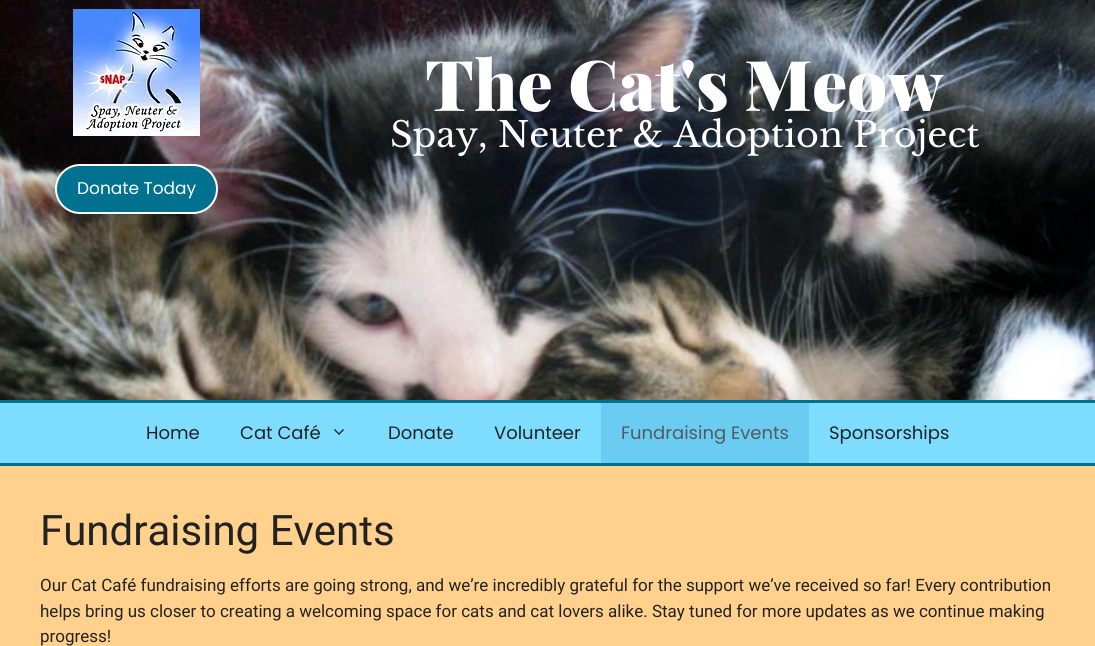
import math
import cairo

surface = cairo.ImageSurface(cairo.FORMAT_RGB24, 1095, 646)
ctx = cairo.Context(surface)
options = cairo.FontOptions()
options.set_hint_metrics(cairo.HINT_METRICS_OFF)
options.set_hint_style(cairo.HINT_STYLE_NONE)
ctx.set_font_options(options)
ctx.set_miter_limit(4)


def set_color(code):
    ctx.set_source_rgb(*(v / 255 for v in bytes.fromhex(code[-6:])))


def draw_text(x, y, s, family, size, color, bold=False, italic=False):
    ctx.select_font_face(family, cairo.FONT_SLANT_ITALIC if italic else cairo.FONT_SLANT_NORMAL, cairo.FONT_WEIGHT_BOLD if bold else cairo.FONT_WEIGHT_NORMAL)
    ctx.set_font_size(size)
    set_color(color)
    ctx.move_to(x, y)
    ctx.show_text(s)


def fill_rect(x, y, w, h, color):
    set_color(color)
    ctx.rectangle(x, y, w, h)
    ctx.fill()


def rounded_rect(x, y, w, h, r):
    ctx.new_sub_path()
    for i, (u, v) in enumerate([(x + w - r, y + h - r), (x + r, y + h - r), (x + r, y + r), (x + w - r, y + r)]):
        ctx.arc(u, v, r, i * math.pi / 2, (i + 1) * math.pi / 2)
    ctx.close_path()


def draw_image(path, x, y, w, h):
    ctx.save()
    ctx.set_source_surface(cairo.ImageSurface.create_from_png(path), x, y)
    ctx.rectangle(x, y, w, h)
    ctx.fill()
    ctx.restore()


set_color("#7ddcff")
ctx.paint()
draw_image("assets/img1.png", 0, 0, 1095, 400)
draw_text(425, 111, "The Cat's Meow", "Playfair Display Black", 70, "#ffffff")
draw_text(390, 147, "Spay, Neuter & Adoption Project", "Libre Baskerville", 35, "#ffffff")
draw_image("assets/img2.png", 73, 9, 127, 127)
set_color("#007290")
rounded_rect(56, 165, 161, 48, 24)
ctx.fill_preserve()
set_color("#ffffff")
ctx.stroke()
draw_text(77, 194, "Donate Today", "Poppins", 17, "#ffffff")
fill_rect(0, 400, 1095, 3, "#007290")
fill_rect(0, 463, 1095, 3, "#007290")
draw_text(146, 439, "Home", "Poppins", 18, "#222222")
draw_text(240, 439, "Cat Café", "Poppins", 18, "#222222")
draw_image("assets/img3.png", 334, 429, 10, 6)
draw_text(388, 439, "Donate", "Poppins", 18, "#222222")
draw_text(494, 439, "Volunteer", "Poppins", 18, "#222222")
fill_rect(601, 403, 208, 60, "#69ccf0")
draw_text(621, 439, "Fundraising Events", "Poppins", 18, "#575760")
draw_text(829, 439, "Sponsorships", "Poppins", 18, "#222222")
fill_rect(0, 466, 1095, 180, "#ffd18c")
draw_text(40, 545, "Fundraising Events", "Roboto", 42, "#222222")
draw_text(40, 591, "Our Cat Café fundraising efforts are going strong, and we’re incredibly grateful for the support we’ve received so far! Every contribution", "Roboto", 17, "#222222")
draw_text(40, 617, "helps bring us closer to creating a welcoming space for cats and cat lovers alike. Stay tuned for more updates as we continue making", "Roboto", 17, "#222222")
draw_text(40, 642, "progress!", "Roboto", 17, "#222222")
surface.write_to_png("output.png")
